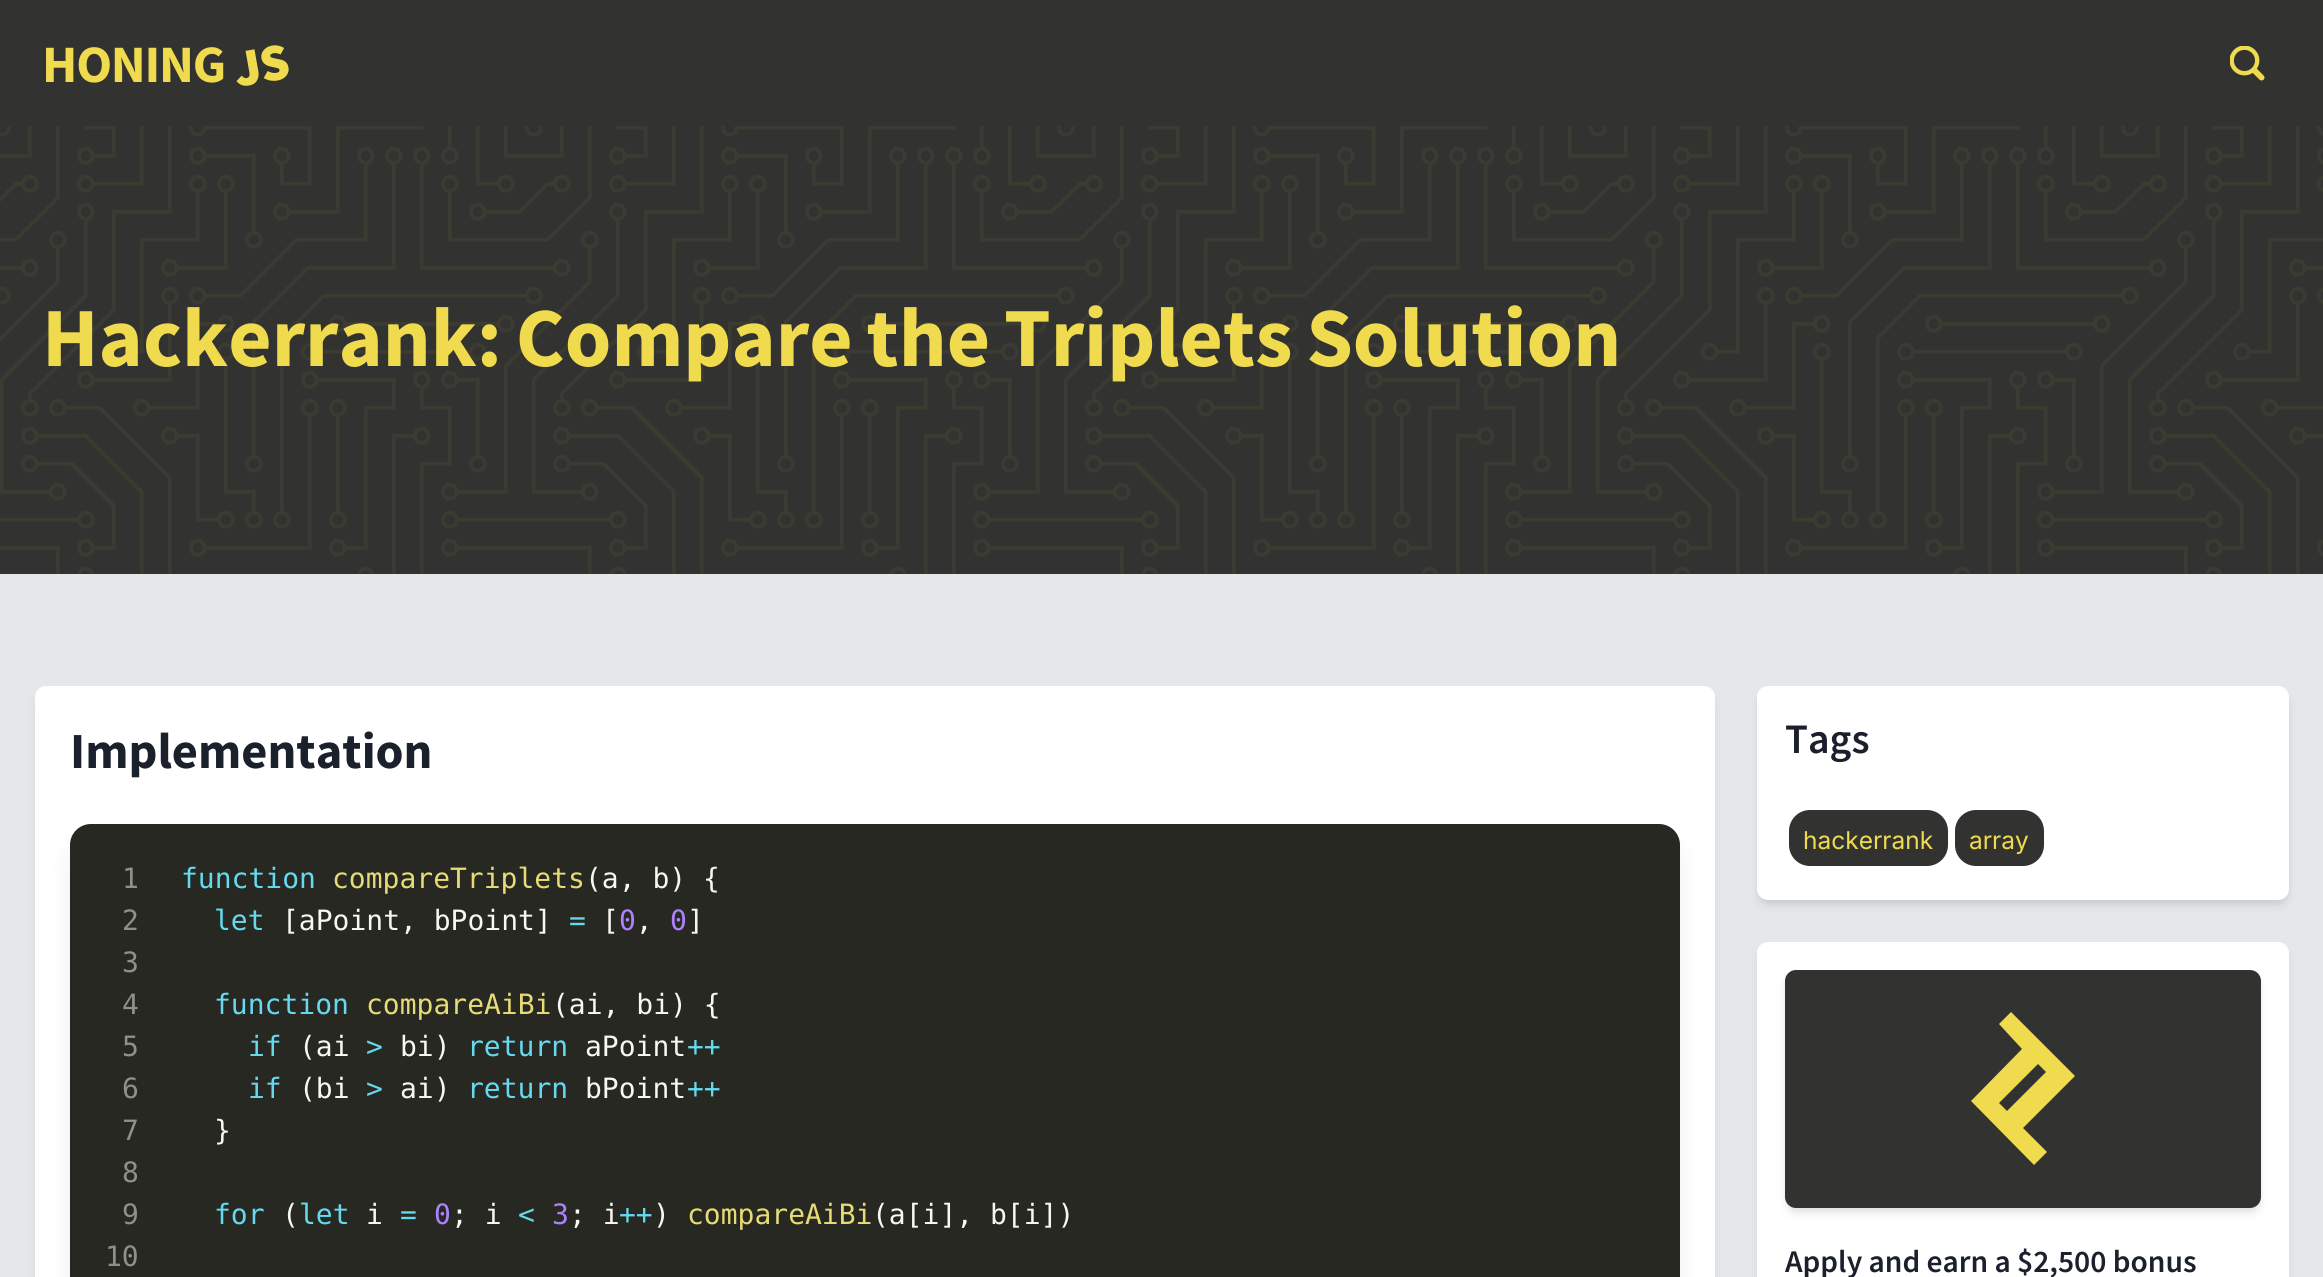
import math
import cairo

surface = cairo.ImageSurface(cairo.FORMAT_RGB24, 2323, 1277)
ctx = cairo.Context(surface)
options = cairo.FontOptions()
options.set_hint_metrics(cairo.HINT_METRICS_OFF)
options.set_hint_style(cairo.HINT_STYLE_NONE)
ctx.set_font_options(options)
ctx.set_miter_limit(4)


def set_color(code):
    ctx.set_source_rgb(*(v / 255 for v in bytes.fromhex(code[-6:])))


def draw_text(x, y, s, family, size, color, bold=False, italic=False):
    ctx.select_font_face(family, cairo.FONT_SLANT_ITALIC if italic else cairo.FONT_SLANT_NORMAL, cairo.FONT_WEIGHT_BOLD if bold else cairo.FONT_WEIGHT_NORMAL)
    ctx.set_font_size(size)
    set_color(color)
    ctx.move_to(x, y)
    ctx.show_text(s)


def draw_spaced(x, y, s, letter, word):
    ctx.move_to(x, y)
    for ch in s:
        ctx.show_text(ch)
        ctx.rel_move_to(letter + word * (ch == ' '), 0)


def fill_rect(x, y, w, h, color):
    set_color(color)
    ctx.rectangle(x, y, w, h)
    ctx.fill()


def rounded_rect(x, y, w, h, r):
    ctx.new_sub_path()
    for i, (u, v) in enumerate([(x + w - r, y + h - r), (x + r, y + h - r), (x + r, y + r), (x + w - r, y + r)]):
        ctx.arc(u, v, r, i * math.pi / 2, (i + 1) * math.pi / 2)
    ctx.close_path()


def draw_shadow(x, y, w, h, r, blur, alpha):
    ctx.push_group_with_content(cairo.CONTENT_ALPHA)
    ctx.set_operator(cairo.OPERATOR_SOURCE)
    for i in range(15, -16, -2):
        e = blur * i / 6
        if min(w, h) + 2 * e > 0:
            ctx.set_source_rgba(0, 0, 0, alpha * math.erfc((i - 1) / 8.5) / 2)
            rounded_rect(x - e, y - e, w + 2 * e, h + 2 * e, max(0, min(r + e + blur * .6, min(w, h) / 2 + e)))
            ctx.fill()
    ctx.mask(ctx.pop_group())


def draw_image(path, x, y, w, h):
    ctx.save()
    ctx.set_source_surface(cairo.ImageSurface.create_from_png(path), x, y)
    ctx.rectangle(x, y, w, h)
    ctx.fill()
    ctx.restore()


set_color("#e5e7eb")
ctx.paint()
fill_rect(0, 0, 2323, 574, "#323330")
ctx.select_font_face("Source Sans Pro", cairo.FONT_SLANT_NORMAL, cairo.FONT_WEIGHT_BOLD)
ctx.set_font_size(52.5)
set_color("#f0db4f")
draw_spaced(42, 82, "HONING", -1.25, 0)
ctx.select_font_face("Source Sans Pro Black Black")
ctx.save()
ctx.translate(237, 87)
ctx.rotate(-10 * math.pi / 180)
draw_spaced(0, 0, "JS", -1.25, 0)
ctx.restore()
draw_image("assets/img1.png", 2230, 46, 35, 35)
draw_image("assets/img2.png", 0, 126, 2323, 448)
ctx.select_font_face("Source Sans Pro", cairo.FONT_SLANT_NORMAL, cairo.FONT_WEIGHT_BOLD)
ctx.set_font_size(84)
draw_spaced(42, 366, "Hackerrank: Compare the Triplets Solution", 0, -3)
set_color("#000000")
draw_shadow(37, 695, 1676, 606, 9, 5, 0.1)
set_color("#ffffff")
rounded_rect(35, 686, 1680, 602, 11)
ctx.fill()
draw_text(70, 768, "Implementation", "Source Sans Pro", 50.5, "#1a202c", bold=True)
set_color("#000000")
draw_shadow(75, 847, 1600, 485, 16, 13, 0.1)
set_color("#272822")
rounded_rect(70, 824, 1610, 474, 21)
ctx.fill()
draw_text(122, 888, "1", "DejaVu Sans Mono", 28, "#90908a")
draw_text(181, 888, "function", "DejaVu Sans Mono", 28, "#66d9ef")
draw_text(332, 888, "compareTriplets", "DejaVu Sans Mono", 28, "#e6db74")
draw_text(585, 888, "(a, b) {", "DejaVu Sans Mono", 28, "#f8f8f2")
draw_text(122, 930, "2", "DejaVu Sans Mono", 28, "#90908a")
draw_text(214, 930, "let", "DejaVu Sans Mono", 28, "#66d9ef")
draw_text(282, 930, "[aPoint, bPoint]", "DejaVu Sans Mono", 28, "#f8f8f2")
draw_text(602, 930, "[ ,", "DejaVu Sans Mono", 28, "#f8f8f2")
draw_text(687, 930, "]", "DejaVu Sans Mono", 28, "#f8f8f2")
draw_text(569, 930, "=", "DejaVu Sans Mono", 28, "#66d9ef")
draw_text(619, 930, "0", "DejaVu Sans Mono", 28, "#ae81ff")
draw_text(670, 930, "0", "DejaVu Sans Mono", 28, "#ae81ff")
draw_text(122, 972, "3", "DejaVu Sans Mono", 28, "#90908a")
draw_text(122, 1014, "4", "DejaVu Sans Mono", 28, "#90908a")
draw_text(214, 1014, "function", "DejaVu Sans Mono", 28, "#66d9ef")
draw_text(366, 1014, "compareAiBi", "DejaVu Sans Mono", 28, "#e6db74")
draw_text(552, 1014, "(ai, bi) {", "DejaVu Sans Mono", 28, "#f8f8f2")
draw_text(122, 1056, "5", "DejaVu Sans Mono", 28, "#90908a")
draw_text(248, 1056, "if", "DejaVu Sans Mono", 28, "#66d9ef")
draw_text(299, 1056, "(ai", "DejaVu Sans Mono", 28, "#f8f8f2")
draw_text(366, 1056, ">", "DejaVu Sans Mono", 28, "#66d9ef")
draw_text(400, 1056, "bi)", "DejaVu Sans Mono", 28, "#f8f8f2")
draw_text(467, 1056, "return", "DejaVu Sans Mono", 28, "#66d9ef")
draw_text(585, 1056, "aPoint", "DejaVu Sans Mono", 28, "#f8f8f2")
draw_text(687, 1056, "++", "DejaVu Sans Mono", 28, "#66d9ef")
draw_text(122, 1098, "6", "DejaVu Sans Mono", 28, "#90908a")
draw_text(248, 1098, "if", "DejaVu Sans Mono", 28, "#66d9ef")
draw_text(299, 1098, "(bi", "DejaVu Sans Mono", 28, "#f8f8f2")
draw_text(366, 1098, ">", "DejaVu Sans Mono", 28, "#66d9ef")
draw_text(400, 1098, "ai)", "DejaVu Sans Mono", 28, "#f8f8f2")
draw_text(467, 1098, "return", "DejaVu Sans Mono", 28, "#66d9ef")
draw_text(585, 1098, "bPoint", "DejaVu Sans Mono", 28, "#f8f8f2")
draw_text(687, 1098, "++", "DejaVu Sans Mono", 28, "#66d9ef")
draw_text(122, 1140, "7", "DejaVu Sans Mono", 28, "#90908a")
draw_text(214, 1140, "}", "DejaVu Sans Mono", 28, "#f8f8f2")
draw_text(122, 1182, "8", "DejaVu Sans Mono", 28, "#90908a")
draw_text(122, 1224, "9", "DejaVu Sans Mono", 28, "#90908a")
draw_text(214, 1224, "for", "DejaVu Sans Mono", 28, "#66d9ef")
draw_text(282, 1224, "(", "DejaVu Sans Mono", 28, "#f8f8f2")
draw_text(299, 1224, "let", "DejaVu Sans Mono", 28, "#66d9ef")
draw_text(366, 1224, "i", "DejaVu Sans Mono", 28, "#f8f8f2")
draw_text(400, 1224, "=", "DejaVu Sans Mono", 28, "#66d9ef")
draw_text(434, 1224, "0", "DejaVu Sans Mono", 28, "#ae81ff")
draw_text(451, 1224, "; i", "DejaVu Sans Mono", 28, "#f8f8f2")
draw_text(518, 1224, "<", "DejaVu Sans Mono", 28, "#66d9ef")
draw_text(552, 1224, "3", "DejaVu Sans Mono", 28, "#ae81ff")
draw_text(569, 1224, "; i", "DejaVu Sans Mono", 28, "#f8f8f2")
draw_text(619, 1224, "++", "DejaVu Sans Mono", 28, "#66d9ef")
draw_text(653, 1224, ")", "DejaVu Sans Mono", 28, "#f8f8f2")
draw_text(687, 1224, "compareAiBi", "DejaVu Sans Mono", 28, "#e6db74")
draw_text(872, 1224, "(a[i], b[i])", "DejaVu Sans Mono", 28, "#f8f8f2")
draw_text(105, 1266, "10", "DejaVu Sans Mono", 28, "#90908a")
set_color("#000000")
draw_shadow(1759, 691, 528, 210, 9, 3.5, 0.06)
draw_shadow(1759, 695, 528, 210, 9, 5, 0.1)
set_color("#ffffff")
rounded_rect(1757, 686, 532, 214, 11)
ctx.fill()
draw_text(1785, 753, "Tags", "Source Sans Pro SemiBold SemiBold", 42, "#1a202c")
set_color("#323330")
rounded_rect(1789, 810, 159, 56, 21)
ctx.fill()
draw_text(1803, 849, "hackerrank", "Inter", 24.5, "#f0db4f")
set_color("#323330")
rounded_rect(1955, 810, 89, 56, 21)
ctx.fill()
draw_text(1969, 849, "array", "Inter", 24.5, "#f0db4f")
set_color("#000000")
draw_shadow(1759, 950, 528, 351, 9, 5, 0.1)
set_color("#ffffff")
rounded_rect(1757, 942, 532, 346, 11)
ctx.fill()
set_color("#000000")
draw_shadow(1787, 975, 472, 234, 9, 3.5, 0.06)
draw_shadow(1787, 978, 472, 235, 9, 5, 0.1)
set_color("#323330")
rounded_rect(1785, 970, 476, 238, 11)
ctx.fill()
set_color("#f0db4f")
ctx.set_fill_rule(cairo.FILL_RULE_EVEN_ODD)
ctx.new_path()
ctx.move_to(1999, 1103)
ctx.line_to(2038, 1064)
ctx.line_to(2046, 1072)
ctx.line_to(2007, 1111)
ctx.close_path()
ctx.move_to(2075, 1076)
ctx.line_to(2011, 1012)
ctx.line_to(1999, 1024)
ctx.line_to(2022, 1049)
ctx.line_to(1971, 1101)
ctx.line_to(2034, 1165)
ctx.line_to(2047, 1152)
ctx.line_to(2023, 1128)
ctx.close_path()
ctx.fill()
draw_text(1785, 1272, "Apply and earn a $2,500 bonus", "Source Sans Pro SemiBold SemiBold", 31.5, "#1a202c")
surface.write_to_png("output.png")
